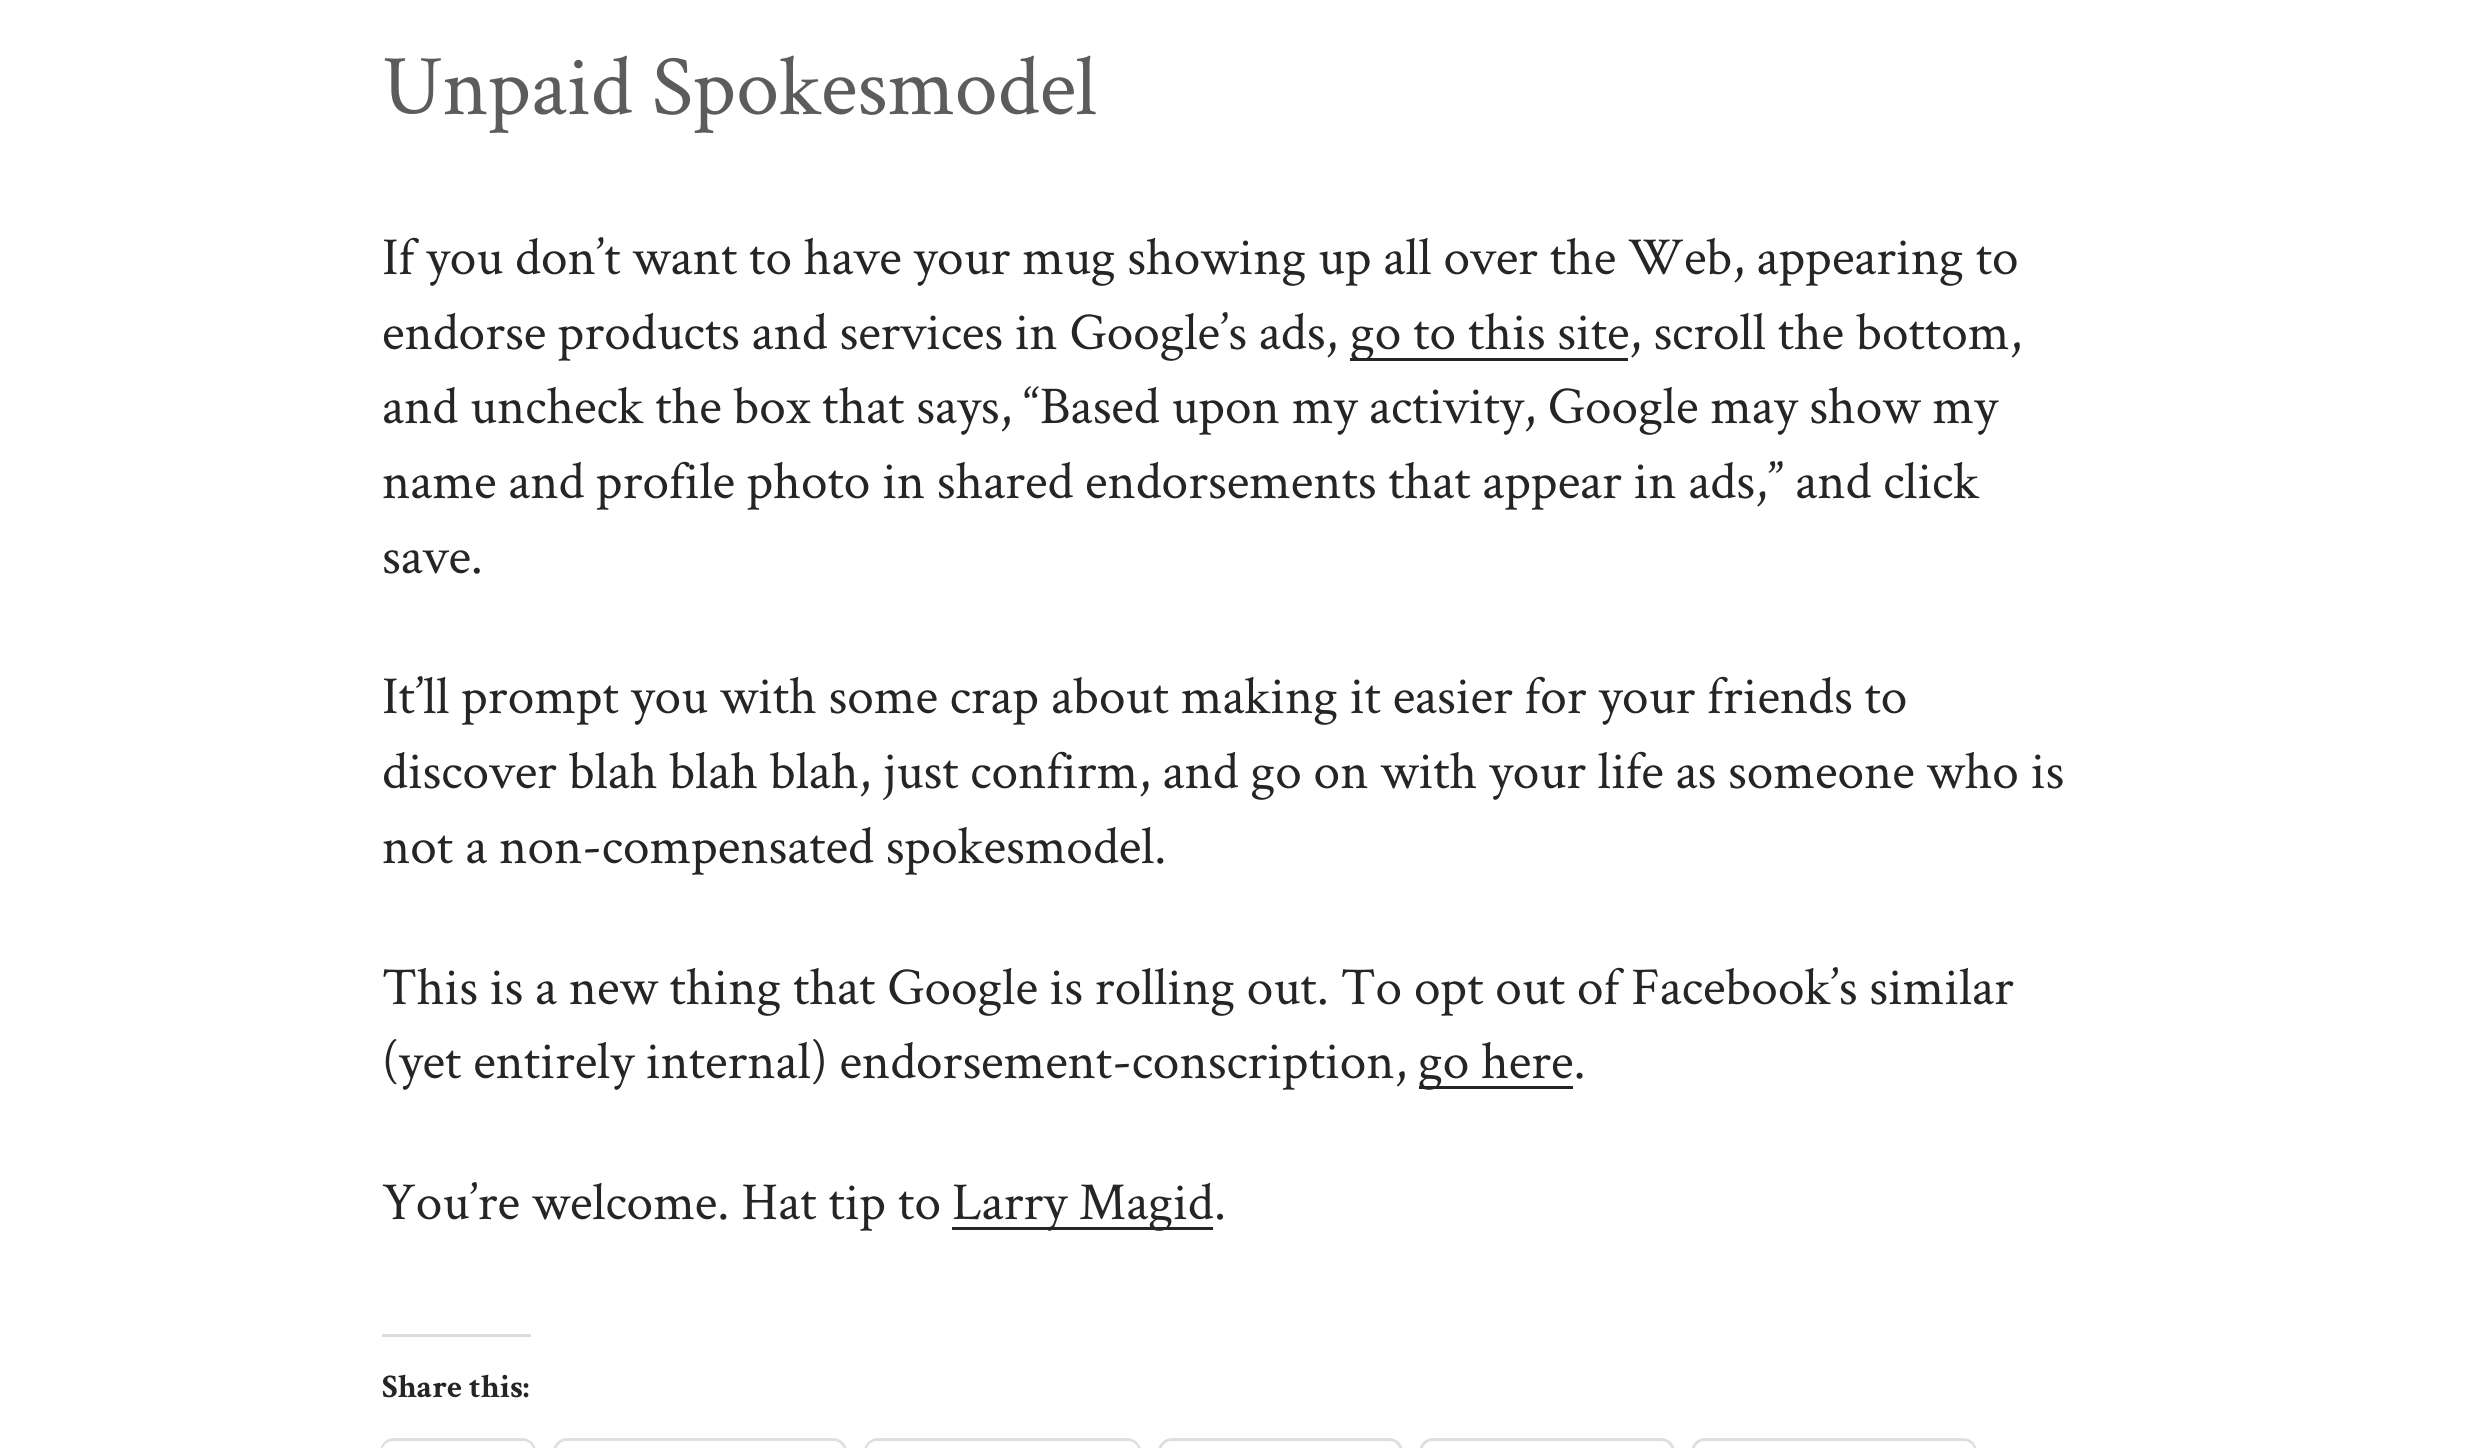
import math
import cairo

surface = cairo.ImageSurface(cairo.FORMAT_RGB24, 2467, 1448)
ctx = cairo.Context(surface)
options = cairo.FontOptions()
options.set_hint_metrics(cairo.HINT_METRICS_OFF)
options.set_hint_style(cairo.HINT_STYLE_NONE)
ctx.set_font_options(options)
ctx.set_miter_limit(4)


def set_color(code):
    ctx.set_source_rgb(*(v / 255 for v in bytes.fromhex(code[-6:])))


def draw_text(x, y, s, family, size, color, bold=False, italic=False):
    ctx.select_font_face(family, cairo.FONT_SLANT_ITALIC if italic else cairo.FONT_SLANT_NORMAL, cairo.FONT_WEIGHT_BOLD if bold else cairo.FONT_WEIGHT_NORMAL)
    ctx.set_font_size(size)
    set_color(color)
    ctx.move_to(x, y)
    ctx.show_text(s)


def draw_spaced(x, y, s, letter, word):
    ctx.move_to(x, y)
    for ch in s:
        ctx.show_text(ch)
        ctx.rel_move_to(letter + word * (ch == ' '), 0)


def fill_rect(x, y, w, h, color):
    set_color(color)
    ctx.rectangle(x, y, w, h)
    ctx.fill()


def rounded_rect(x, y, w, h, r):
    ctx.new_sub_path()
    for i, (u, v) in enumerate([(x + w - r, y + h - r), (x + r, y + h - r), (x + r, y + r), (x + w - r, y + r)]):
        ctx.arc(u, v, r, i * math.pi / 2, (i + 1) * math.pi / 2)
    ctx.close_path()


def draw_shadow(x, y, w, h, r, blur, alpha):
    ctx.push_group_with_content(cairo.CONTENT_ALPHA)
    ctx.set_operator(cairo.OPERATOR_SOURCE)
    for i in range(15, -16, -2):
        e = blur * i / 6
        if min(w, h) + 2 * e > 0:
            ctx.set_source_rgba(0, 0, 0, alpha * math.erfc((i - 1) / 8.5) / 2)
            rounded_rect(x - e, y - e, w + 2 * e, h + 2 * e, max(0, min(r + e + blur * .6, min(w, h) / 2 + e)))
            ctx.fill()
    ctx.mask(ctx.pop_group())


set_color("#ffffff")
ctx.paint()
draw_text(382, 114, "Unpaid Spokesmodel", "Crimson Text", 86.25, "#5c5c5c")
ctx.set_font_size(53.35)
set_color("#252525")
draw_spaced(382, 274, "If you don’t want to have your mug showing up all over the Web, appearing to", 0, -0.1)
draw_spaced(382, 349, "endorse products and services in Google’s ads,", 0, -0.2)
fill_rect(1350, 358, 278, 3, "#252525")
draw_text(1350, 349, "go to this site", "Crimson Text", 53.35, "#252525")
draw_text(1629, 349, ", scroll the bottom,", "Crimson Text", 53.35, "#252525")
draw_spaced(382, 423, "and uncheck the box that says, “Based upon my activity, Google may show my", 0, -0.1)
draw_spaced(382, 498, "name and profile photo in shared endorsements that appear in ads,” and click", 0, -0.2)
draw_text(382, 573, "save.", "Crimson Text", 53.35, "#252525")
draw_spaced(382, 713, "It’ll prompt you with some crap about making it easier for your friends to", 0, -0.1)
draw_spaced(382, 788, "discover blah blah blah, just confirm, and go on with your life as someone who is", 0, -0.1)
draw_text(382, 863, "not a non-compensated spokesmodel.", "Crimson Text", 53.35, "#252525")
draw_spaced(382, 1004, "This is a new thing that Google is rolling out. To opt out of Facebook’s similar", 0, -0.1)
draw_text(382, 1078, "(yet entirely internal) endorsement-conscription,", "Crimson Text", 53.35, "#252525")
fill_rect(1419, 1086, 154, 3, "#252525")
draw_text(1418, 1078, "go here.", "Crimson Text", 53.35, "#252525")
draw_text(382, 1219, "You’re welcome. Hat tip to", "Crimson Text", 53.35, "#252525")
fill_rect(952, 1227, 261, 3, "#252525")
draw_text(952, 1219, "Larry Magid", "Crimson Text", 53.35, "#252525")
draw_text(1214, 1219, ".", "Crimson Text", 53.35, "#252525")
fill_rect(382, 1334, 149, 3, "#dcdcde")
draw_text(382, 1397, "Share this:", "Crimson Text", 33, "#252525", bold=True)
rounded_rect(381.5, 1439.5, 153, 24, 12.5)
set_color("#e0e0e0")
ctx.set_line_width(3)
ctx.stroke()
set_color("#000000")
draw_shadow(382, 1444, 152, 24, 11, 3, 0.12)
set_color("#ffffff")
rounded_rect(382, 1441, 152, 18, 11)
ctx.fill()
rounded_rect(554.5, 1439.5, 291, 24, 12.5)
set_color("#e0e0e0")
ctx.stroke()
set_color("#ffffff")
rounded_rect(556, 1441, 288, 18, 11)
ctx.fill()
rounded_rect(865.5, 1439.5, 274, 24, 12.5)
set_color("#e0e0e0")
ctx.stroke()
set_color("#000000")
draw_shadow(866, 1444, 273, 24, 11, 3, 0.12)
set_color("#ffffff")
rounded_rect(866, 1441, 273, 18, 11)
ctx.fill()
rounded_rect(1159.5, 1439.5, 242, 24, 12.5)
set_color("#e0e0e0")
ctx.stroke()
set_color("#000000")
draw_shadow(1161, 1444, 239, 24, 11, 3, 0.12)
set_color("#ffffff")
rounded_rect(1161, 1441, 239, 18, 11)
ctx.fill()
rounded_rect(1420.5, 1439.5, 253, 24, 12.5)
set_color("#e0e0e0")
ctx.stroke()
set_color("#000000")
draw_shadow(1422, 1444, 250, 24, 11, 3, 0.12)
set_color("#ffffff")
rounded_rect(1422, 1441, 250, 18, 11)
ctx.fill()
rounded_rect(1692.5, 1439.5, 283, 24, 12.5)
set_color("#e0e0e0")
ctx.stroke()
set_color("#000000")
draw_shadow(1694, 1444, 281, 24, 11, 3, 0.12)
set_color("#ffffff")
rounded_rect(1694, 1441, 281, 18, 11)
ctx.fill()
surface.write_to_png("output.png")
